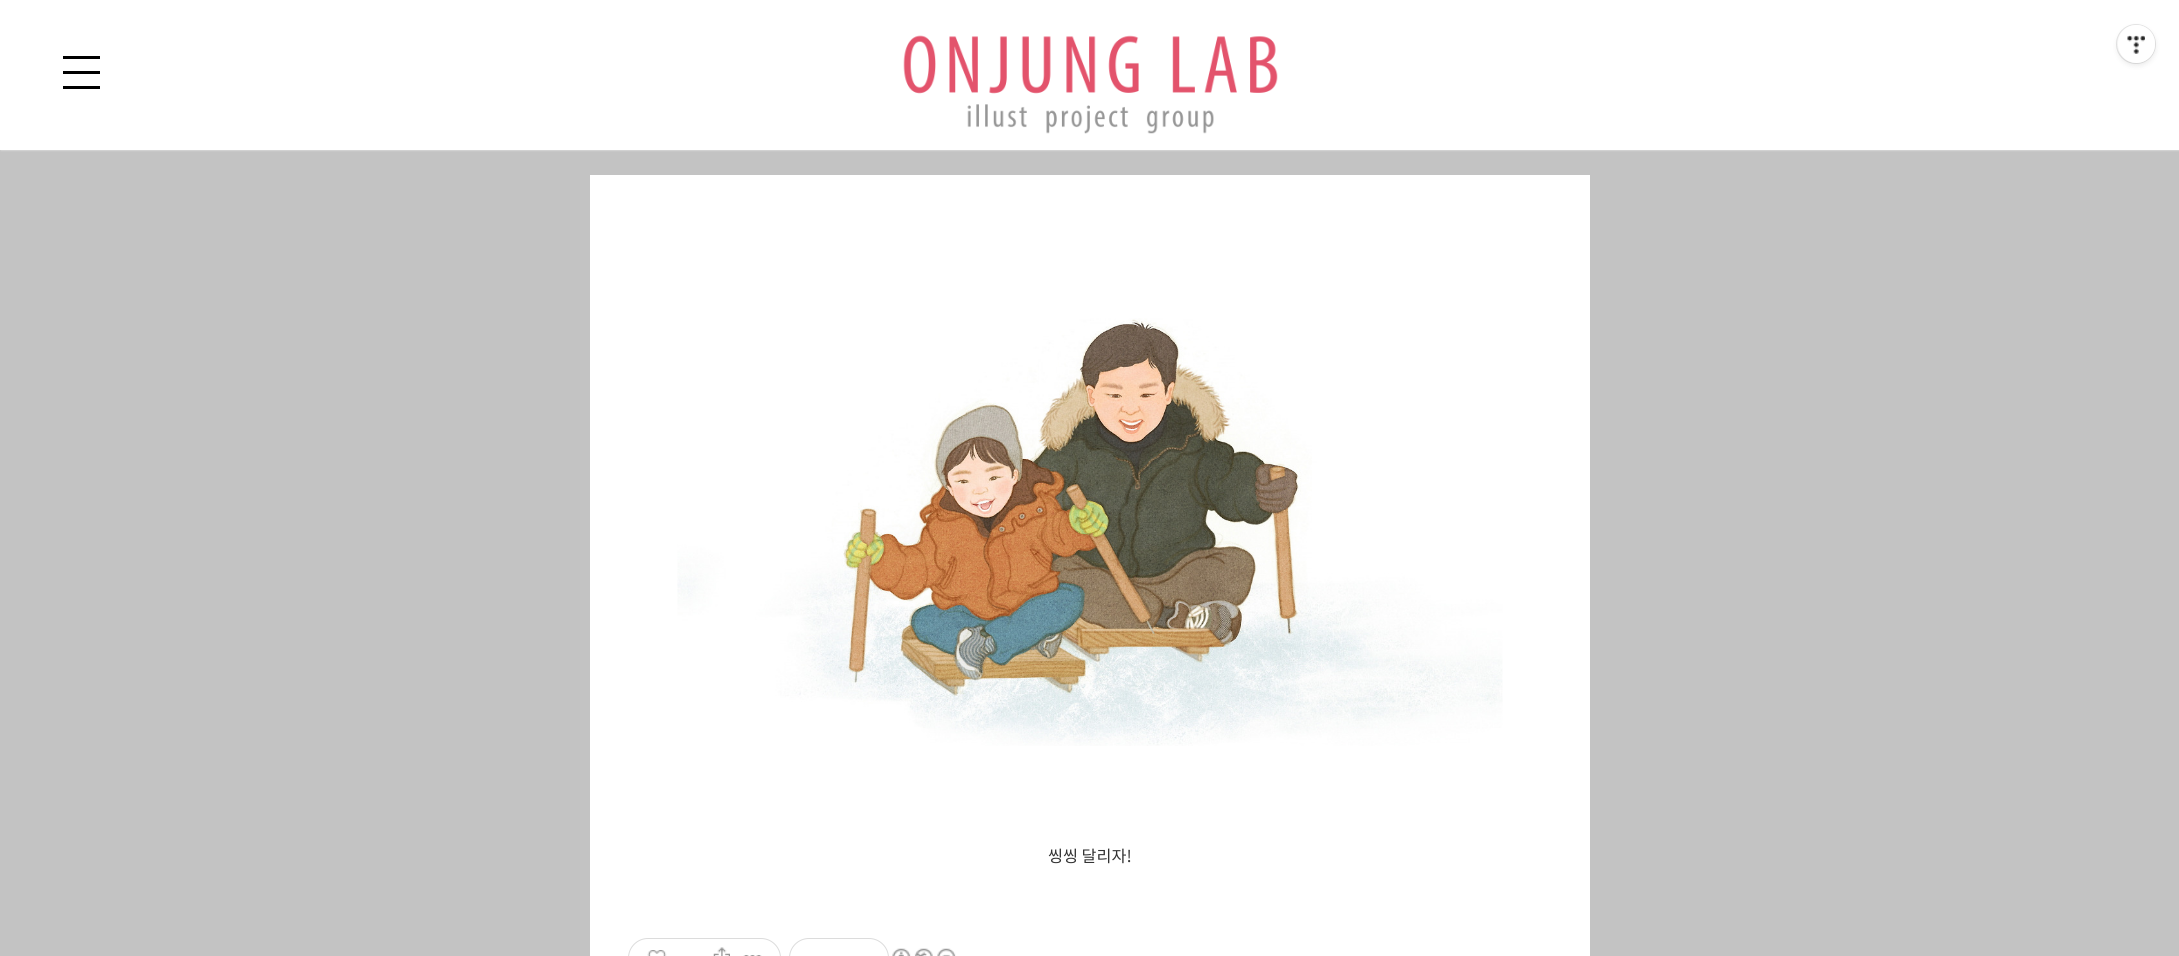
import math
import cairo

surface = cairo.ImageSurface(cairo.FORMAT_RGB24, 2179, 956)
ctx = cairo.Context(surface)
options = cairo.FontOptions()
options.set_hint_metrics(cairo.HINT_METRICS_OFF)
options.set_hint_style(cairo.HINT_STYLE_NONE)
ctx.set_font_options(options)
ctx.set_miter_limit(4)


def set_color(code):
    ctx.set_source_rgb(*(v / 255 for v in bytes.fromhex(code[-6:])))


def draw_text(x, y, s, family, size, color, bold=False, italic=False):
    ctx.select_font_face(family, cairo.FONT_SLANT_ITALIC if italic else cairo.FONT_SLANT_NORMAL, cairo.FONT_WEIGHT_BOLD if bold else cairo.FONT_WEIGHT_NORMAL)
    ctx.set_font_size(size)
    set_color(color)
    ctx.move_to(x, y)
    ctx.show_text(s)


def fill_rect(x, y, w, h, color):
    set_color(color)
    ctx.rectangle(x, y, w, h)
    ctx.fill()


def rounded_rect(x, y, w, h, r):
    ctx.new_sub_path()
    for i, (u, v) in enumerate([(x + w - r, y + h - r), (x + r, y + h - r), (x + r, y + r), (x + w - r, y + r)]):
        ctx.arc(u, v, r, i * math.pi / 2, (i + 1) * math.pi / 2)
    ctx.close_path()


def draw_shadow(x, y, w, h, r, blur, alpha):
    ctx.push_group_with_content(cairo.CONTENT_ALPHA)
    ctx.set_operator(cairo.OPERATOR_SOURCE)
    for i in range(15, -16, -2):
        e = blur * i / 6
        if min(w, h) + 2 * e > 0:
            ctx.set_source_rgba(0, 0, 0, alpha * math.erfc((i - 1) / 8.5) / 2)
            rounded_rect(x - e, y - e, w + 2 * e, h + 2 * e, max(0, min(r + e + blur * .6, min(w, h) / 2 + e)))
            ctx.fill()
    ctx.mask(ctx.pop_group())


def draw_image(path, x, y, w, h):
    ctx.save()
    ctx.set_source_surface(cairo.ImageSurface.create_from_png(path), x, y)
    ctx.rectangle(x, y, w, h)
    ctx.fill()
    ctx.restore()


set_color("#c3c3c3")
ctx.paint()
set_color("#eeeeee")
draw_shadow(1, 0, 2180, 150, 0, 1, 1)
fill_rect(0, 0, 2179, 150, "#ffffff")
fill_rect(63, 56, 37, 3, "#000000")
fill_rect(63, 71, 37, 3, "#000000")
fill_rect(63, 86, 37, 3, "#000000")
draw_image("assets/img1.png", 903, 35, 375, 99)
set_color("#000000")
draw_shadow(2118, 28, 37, 37, 18.5, 3, 0.1)
ctx.arc(2136, 44, 19.5, 0, 2 * math.pi)
ctx.set_source_rgba(0, 0, 0, 0.1)
ctx.set_line_width(1)
ctx.stroke()
set_color("#ffffff")
rounded_rect(2118, 25, 37, 38, 18.5)
ctx.fill()
draw_image("assets/img2.png", 2127, 35, 18, 19)
fill_rect(590, 175, 1000, 781, "#ffffff")
draw_image("assets/img3.png", 677, 318, 826, 428)
draw_text(1048, 862, "씽씽 달리자!", "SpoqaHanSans", 16.25, "#333333")
rounded_rect(628.5, 938.5, 152, 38, 19.5)
set_color("#dcdcdc")
ctx.stroke()
draw_image("assets/img4.png", 647, 950, 20, 6)
draw_image("assets/img5.png", 713, 947, 17, 9)
draw_image("assets/img6.png", 743, 955, 19, 1)
rounded_rect(789.5, 938.5, 99, 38, 19.5)
ctx.stroke()
draw_image("assets/img7.png", 892, 948, 19, 8)
draw_image("assets/img8.png", 914, 948, 19, 8)
draw_image("assets/img9.png", 937, 948, 19, 8)
surface.write_to_png("output.png")
